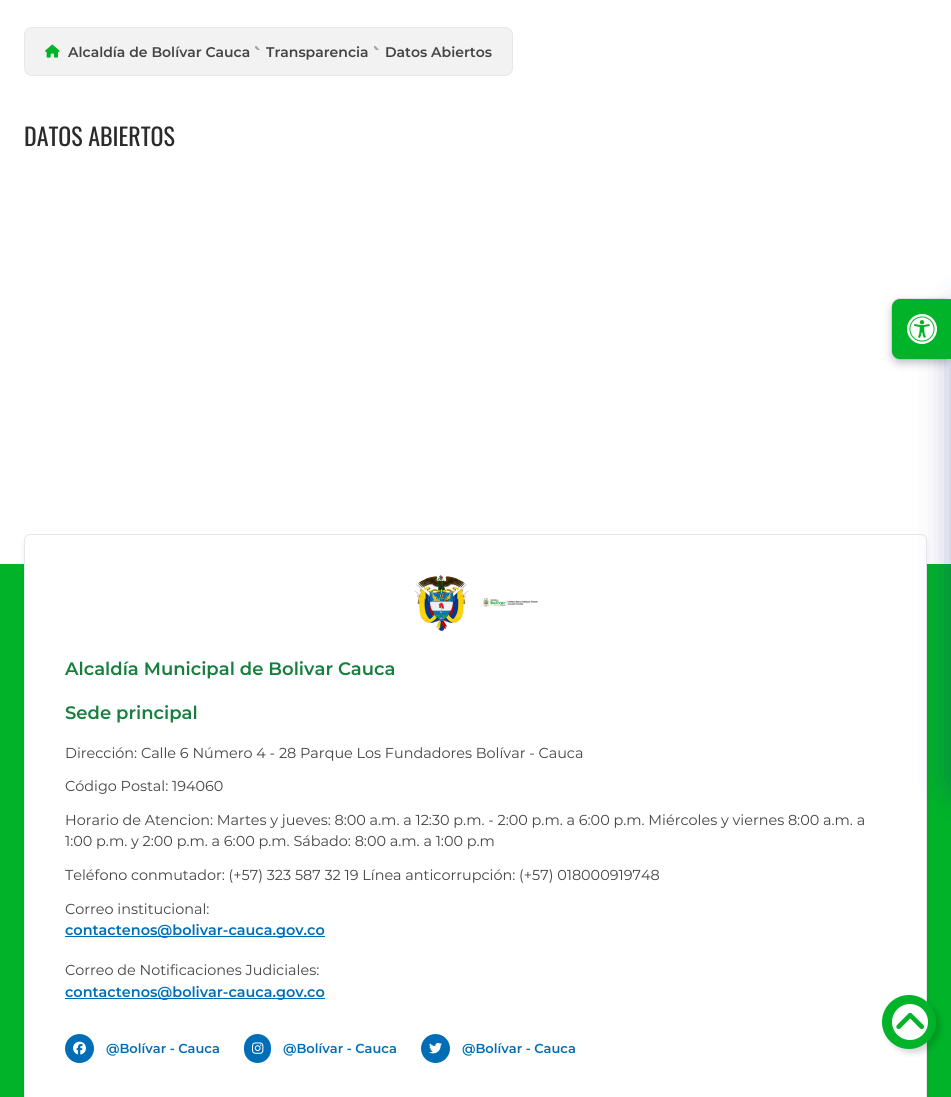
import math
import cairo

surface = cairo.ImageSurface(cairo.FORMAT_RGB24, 951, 1097)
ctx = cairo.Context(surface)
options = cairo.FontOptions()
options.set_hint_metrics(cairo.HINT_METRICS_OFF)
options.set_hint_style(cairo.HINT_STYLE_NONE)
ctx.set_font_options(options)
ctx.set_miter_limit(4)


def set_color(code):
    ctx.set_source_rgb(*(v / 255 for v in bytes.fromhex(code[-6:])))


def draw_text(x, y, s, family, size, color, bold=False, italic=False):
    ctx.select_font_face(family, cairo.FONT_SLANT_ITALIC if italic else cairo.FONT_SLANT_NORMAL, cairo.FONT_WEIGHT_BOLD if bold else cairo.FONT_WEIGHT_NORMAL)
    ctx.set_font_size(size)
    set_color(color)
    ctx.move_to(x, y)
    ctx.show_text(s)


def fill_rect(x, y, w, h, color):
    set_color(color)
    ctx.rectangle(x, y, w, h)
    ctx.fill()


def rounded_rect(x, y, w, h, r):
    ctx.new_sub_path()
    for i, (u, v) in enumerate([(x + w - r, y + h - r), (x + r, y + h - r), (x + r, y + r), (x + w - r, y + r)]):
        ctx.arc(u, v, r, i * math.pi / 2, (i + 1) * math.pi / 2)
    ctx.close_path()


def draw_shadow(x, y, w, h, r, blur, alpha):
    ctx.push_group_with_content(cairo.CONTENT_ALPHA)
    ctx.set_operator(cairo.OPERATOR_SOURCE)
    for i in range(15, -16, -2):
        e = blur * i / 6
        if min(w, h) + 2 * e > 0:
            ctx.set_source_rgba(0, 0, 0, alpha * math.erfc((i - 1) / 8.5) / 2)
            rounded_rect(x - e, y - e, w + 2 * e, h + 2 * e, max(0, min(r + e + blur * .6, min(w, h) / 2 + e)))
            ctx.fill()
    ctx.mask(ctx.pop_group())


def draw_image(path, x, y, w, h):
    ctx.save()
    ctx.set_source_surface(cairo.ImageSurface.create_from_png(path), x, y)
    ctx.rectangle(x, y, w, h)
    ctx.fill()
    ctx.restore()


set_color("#ffffff")
ctx.paint()
set_color("#f2f2f2")
rounded_rect(24.5, 27.5, 488, 48, 7.5)
ctx.fill_preserve()
set_color("#e5e7eb")
ctx.set_line_width(1)
ctx.stroke()
draw_image("assets/img1.png", 45, 44, 15, 14)
draw_text(68, 57, "Alcaldía de Bolívar Cauca", "Montserrat SemiBold", 14, "#444444")
draw_image("assets/img2.png", 255, 46, 5, 4)
draw_text(266, 57, "Transparencia", "Montserrat SemiBold", 14, "#444444")
draw_image("assets/img2.png", 374, 46, 5, 4)
draw_text(385, 57, "Datos Abiertos", "Montserrat SemiBold", 14, "#444444")
draw_text(24, 146, "DATOS ABIERTOS", "Oswald", 24, "#2a2a2a")
fill_rect(0, 564, 951, 533, "#00b329")
set_color("#000000")
draw_shadow(25, 539, 901, 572, 5, 3, 0.1)
set_color("#ffffff")
rounded_rect(24.5, 534.5, 902, 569, 5.5)
ctx.fill_preserve()
set_color("#e5e7eb")
ctx.stroke()
draw_image("assets/img3.png", 414, 575, 55, 56)
draw_image("assets/img4.png", 482, 598, 56, 9)
draw_text(65, 675, "Alcaldía Municipal de Bolivar Cauca", "Montserrat SemiBold", 18, "#15803d")
draw_text(65, 719, "Sede principal", "Montserrat SemiBold", 18, "#15803d")
draw_text(65, 758, "Dirección: Calle 6 Número 4 - 28 Parque Los Fundadores Bolívar - Cauca", "Montserrat", 14.4, "#444444")
draw_text(65, 791, "Código Postal: 194060", "Montserrat", 14.4, "#444444")
draw_text(65, 825, "Horario de Atencion: Martes y jueves: 8:00 a.m. a 12:30 p.m. - 2:00 p.m. a 6:00 p.m. Miércoles y viernes 8:00 a.m. a", "Montserrat", 14.4, "#444444")
draw_text(65, 846, "1:00 p.m. y 2:00 p.m. a 6:00 p.m. Sábado: 8:00 a.m. a 1:00 p.m", "Montserrat", 14.4, "#444444")
draw_text(65, 880, "Teléfono conmutador: (+57) 323 587 32 19 Línea anticorrupción: (+57) 018000919748", "Montserrat", 14.4, "#444444")
draw_text(65, 914, "Correo institucional:", "Montserrat", 14.4, "#444444")
fill_rect(65, 936, 260, 1, "#006eb6")
draw_text(65, 935, "contactenos@bolivar-cauca.gov.co", "Montserrat SemiBold", 14.4, "#006eb6")
draw_text(65, 975, "Correo de Notificaciones Judiciales:", "Montserrat", 14.4, "#444444")
fill_rect(65, 998, 260, 1, "#006eb6")
draw_text(65, 997, "contactenos@bolivar-cauca.gov.co", "Montserrat SemiBold", 14.4, "#006eb6")
ctx.new_path()
ctx.arc(79.5, 1048.5, 14.5, 0, 2 * math.pi)
ctx.fill()
draw_image("assets/img5.png", 73, 1041, 13, 14)
draw_text(106, 1053, "@Bolívar - Cauca", "Montserrat SemiBold", 13, "#006eb6")
rounded_rect(244, 1034, 27, 29, 13.5)
ctx.fill()
draw_image("assets/img6.png", 252, 1042, 12, 12)
draw_text(283, 1053, "@Bolívar - Cauca", "Montserrat SemiBold", 13, "#006eb6")
ctx.new_path()
ctx.arc(435.5, 1048.5, 14.5, 0, 2 * math.pi)
ctx.fill()
draw_image("assets/img7.png", 429, 1042, 13, 12)
draw_text(462, 1053, "@Bolívar - Cauca", "Montserrat SemiBold", 13, "#006eb6")
set_color("#000000")
draw_shadow(886, 999, 54, 54, 27, 3, 0.16)
set_color("#00b329")
ctx.arc(909, 1022, 27, 0, 2 * math.pi)
ctx.fill()
set_color("#ffffff")
ctx.arc(910, 1022, 18, 0, 2 * math.pi)
ctx.fill()
draw_image("assets/img8.png", 896, 1012, 28, 17)
set_color("#1f2687")
draw_shadow(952, 307, 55, 484, 8, 16, 0.37)
set_color("#2d2342")
draw_shadow(892, 303, 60, 60, 8, 4.5, 0.3)
draw_shadow(892, 299, 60, 60, 8, 0.5, 0.4)
set_color("#00b329")
ctx.new_path()
ctx.move_to(900, 299.5)
ctx.line_to(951.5, 299.5)
ctx.line_to(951.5, 358.5)
ctx.line_to(900, 358.5)
ctx.curve_to(896, 358.5, 892.5, 355, 892.5, 351)
ctx.line_to(892.5, 307)
ctx.curve_to(892.5, 303, 896, 299.5, 900, 299.5)
ctx.close_path()
ctx.fill_preserve()
ctx.stroke()
draw_image("assets/img9.png", 907, 314, 30, 30)
surface.write_to_png("output.png")
